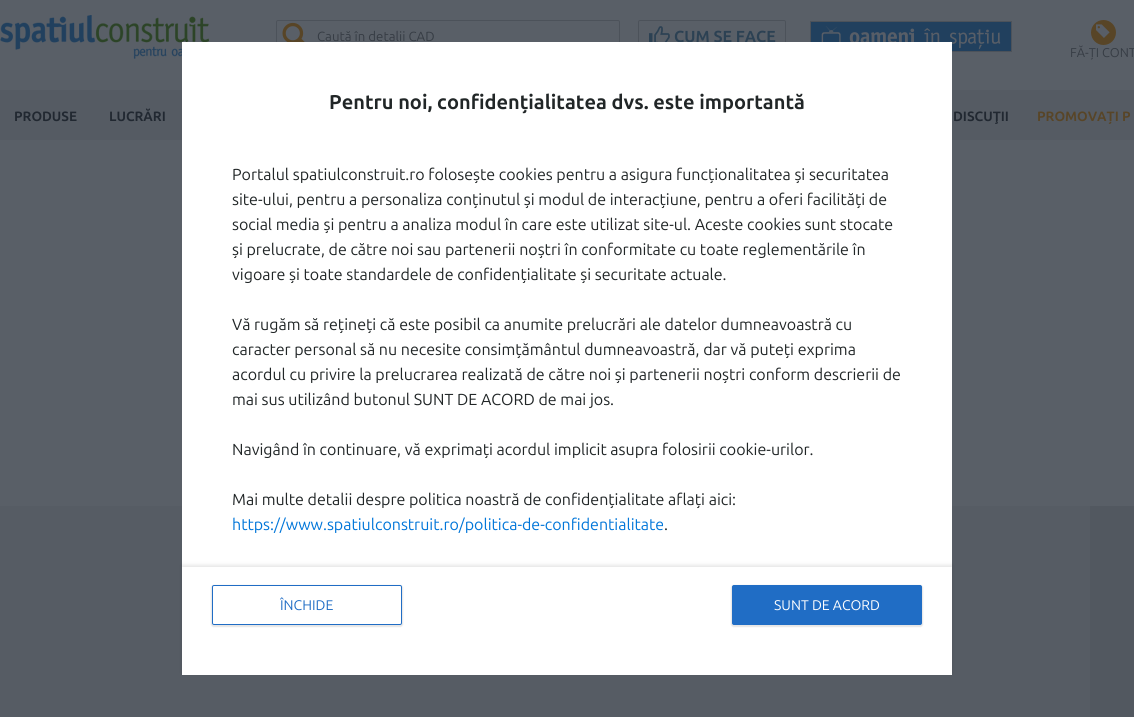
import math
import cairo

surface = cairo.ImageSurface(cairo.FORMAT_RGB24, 1134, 717)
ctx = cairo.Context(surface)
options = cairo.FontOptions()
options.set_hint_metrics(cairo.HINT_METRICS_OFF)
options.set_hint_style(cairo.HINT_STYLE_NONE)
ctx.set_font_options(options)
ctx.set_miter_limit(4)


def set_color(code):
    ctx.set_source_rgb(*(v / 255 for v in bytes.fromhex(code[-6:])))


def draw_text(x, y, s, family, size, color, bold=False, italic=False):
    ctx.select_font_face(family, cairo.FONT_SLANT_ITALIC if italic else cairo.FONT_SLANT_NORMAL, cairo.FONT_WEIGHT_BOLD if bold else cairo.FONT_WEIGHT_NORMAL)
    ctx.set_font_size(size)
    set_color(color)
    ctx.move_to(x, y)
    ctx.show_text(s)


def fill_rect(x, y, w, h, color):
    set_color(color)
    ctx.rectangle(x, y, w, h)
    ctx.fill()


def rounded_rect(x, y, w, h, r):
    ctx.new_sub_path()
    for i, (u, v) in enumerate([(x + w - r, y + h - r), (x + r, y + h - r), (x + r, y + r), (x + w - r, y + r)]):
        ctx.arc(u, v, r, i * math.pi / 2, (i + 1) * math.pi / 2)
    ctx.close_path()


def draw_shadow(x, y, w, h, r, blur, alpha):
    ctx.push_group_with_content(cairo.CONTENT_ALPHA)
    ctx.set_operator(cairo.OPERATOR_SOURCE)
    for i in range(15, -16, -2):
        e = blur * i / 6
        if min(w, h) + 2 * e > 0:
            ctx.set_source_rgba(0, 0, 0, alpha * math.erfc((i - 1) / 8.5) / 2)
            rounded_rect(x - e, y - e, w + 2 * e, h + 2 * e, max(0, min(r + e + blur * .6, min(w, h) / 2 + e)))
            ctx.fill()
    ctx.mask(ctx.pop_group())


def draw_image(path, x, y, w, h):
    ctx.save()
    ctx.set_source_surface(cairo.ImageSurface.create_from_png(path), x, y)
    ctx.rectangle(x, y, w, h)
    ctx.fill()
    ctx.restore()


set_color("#595f67")
ctx.paint()
draw_image("assets/img1.png", 0, 15, 209, 44)
rounded_rect(276.5, 20.5, 343, 31, 1.5)
set_color("#4c525a")
ctx.set_line_width(1)
ctx.stroke()
draw_image("assets/img2.png", 282, 22, 23, 20)
draw_text(317, 41, "Caută în detalii CAD", "Ubuntu", 13.25, "#363c44")
rounded_rect(638.5, 20.5, 147, 31, 1.5)
set_color("#4c525a")
ctx.stroke()
draw_image("assets/img3.png", 649, 26, 21, 16)
draw_text(674, 42, "CUM SE FACE", "Ubuntu", 16, "#2c4153", bold=True)
set_color("#21405e")
ctx.rectangle(810.5, 21.5, 201, 30)
ctx.fill_preserve()
set_color("#4c525a")
ctx.stroke()
draw_image("assets/img4.png", 821, 26, 180, 23)
set_color("#584527")
ctx.arc(1103.5, 32.5, 12.5, 0, 2 * math.pi)
ctx.fill()
draw_image("assets/img5.png", 1096, 24, 14, 14)
draw_text(1070, 57, "FĂ-ȚI CONT", "Ubuntu", 12.75, "#363c44")
fill_rect(0, 90, 1134, 50, "#555b63")
draw_text(14, 121, "PRODUSE", "Ubuntu", 13.5, "#212831", bold=True)
draw_text(109, 121, "LUCRĂRI", "Ubuntu", 13.5, "#212831", bold=True)
draw_text(953, 121, "DISCUŢII", "Ubuntu", 13.5, "#212831", bold=True)
draw_text(1037, 121, "PROMOVAȚI P", "Ubuntu", 13.5, "#584527", bold=True)
fill_rect(0, 506, 1090, 211, "#565c64")
fill_rect(1090, 506, 44, 211, "#525860")
fill_rect(182, 42, 770, 633, "#ffffff")
draw_text(329, 109, "Pentru noi, confidențialitatea dvs. este importantă", "Ubuntu", 20, "#212627", bold=True)
draw_text(232, 180, "Portalul spatiulconstruit.ro folosește cookies pentru a asigura funcționalitatea și securitatea", "Ubuntu", 16, "#212627")
draw_text(232, 205, "site-ului, pentru a personaliza conținutul și modul de interacțiune, pentru a oferi facilități de", "Ubuntu", 16, "#212627")
draw_text(232, 230, "social media și pentru a analiza modul în care este utilizat site-ul. Aceste cookies sunt stocate", "Ubuntu", 16, "#212627")
draw_text(232, 255, "și prelucrate, de către noi sau partenerii noștri în conformitate cu toate reglementările în", "Ubuntu", 16, "#212627")
draw_text(232, 280, "vigoare și toate standardele de confidențialitate și securitate actuale.", "Ubuntu", 16, "#212627")
draw_text(232, 330, "Vă rugăm să rețineți că este posibil ca anumite prelucrări ale datelor dumneavoastră cu", "Ubuntu", 16, "#212627")
draw_text(232, 355, "caracter personal să nu necesite consimțământul dumneavoastră, dar vă puteți exprima", "Ubuntu", 16, "#212627")
draw_text(232, 380, "acordul cu privire la prelucrarea realizată de către noi și partenerii noștri conform descrierii de", "Ubuntu", 16, "#212627")
draw_text(232, 405, "mai sus utilizând butonul SUNT DE ACORD de mai jos.", "Ubuntu", 16, "#212627")
draw_text(232, 455, "Navigând în continuare, vă exprimați acordul implicit asupra folosirii cookie-urilor.", "Ubuntu", 16, "#212627")
draw_text(232, 505, "Mai multe detalii despre politica noastră de confidențialitate aflați aici:", "Ubuntu", 16, "#212627")
draw_text(232, 530, "https://www.spatiulconstruit.ro/politica-de-confidentialitate", "Ubuntu", 16, "#0176d9")
draw_text(664, 530, ".", "Ubuntu", 16, "#212627")
ctx.save()
ctx.set_fill_rule(cairo.FILL_RULE_EVEN_ODD)
ctx.new_path()
ctx.move_to(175, 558)
ctx.line_to(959, 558)
ctx.line_to(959, 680)
ctx.line_to(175, 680)
ctx.close_path()
ctx.move_to(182, 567)
ctx.line_to(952, 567)
ctx.line_to(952, 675)
ctx.line_to(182, 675)
ctx.close_path()
ctx.clip()
set_color("#000000")
draw_shadow(182, 565, 770, 108, 0, 2, 0.1)
ctx.restore()
set_color("#000000")
draw_shadow(211, 585, 192, 42, 3, 0.5, 0.1)
set_color("#ffffff")
rounded_rect(212.5, 585.5, 189, 39, 1.5)
ctx.fill_preserve()
set_color("#206dc5")
ctx.stroke()
draw_text(280, 610, "ÎNCHIDE", "Ubuntu", 14, "#206dc5")
set_color("#000000")
draw_shadow(731, 585, 192, 42, 3, 0.5, 0.1)
set_color("#206dc5")
rounded_rect(732.5, 585.5, 189, 39, 1.5)
ctx.fill_preserve()
ctx.stroke()
draw_text(774, 610, "SUNT DE ACORD", "Ubuntu", 14, "#ffffff")
surface.write_to_png("output.png")
